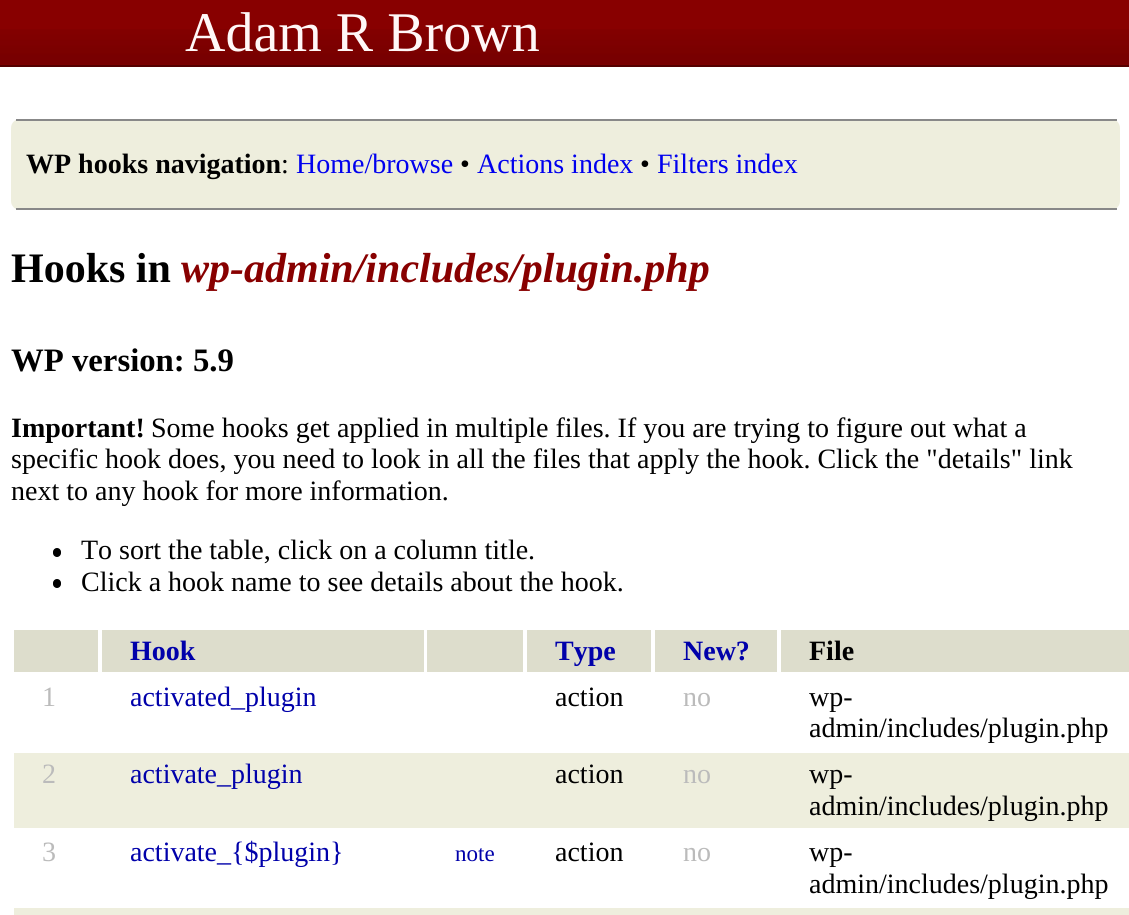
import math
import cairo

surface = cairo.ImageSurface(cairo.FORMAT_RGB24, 1129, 915)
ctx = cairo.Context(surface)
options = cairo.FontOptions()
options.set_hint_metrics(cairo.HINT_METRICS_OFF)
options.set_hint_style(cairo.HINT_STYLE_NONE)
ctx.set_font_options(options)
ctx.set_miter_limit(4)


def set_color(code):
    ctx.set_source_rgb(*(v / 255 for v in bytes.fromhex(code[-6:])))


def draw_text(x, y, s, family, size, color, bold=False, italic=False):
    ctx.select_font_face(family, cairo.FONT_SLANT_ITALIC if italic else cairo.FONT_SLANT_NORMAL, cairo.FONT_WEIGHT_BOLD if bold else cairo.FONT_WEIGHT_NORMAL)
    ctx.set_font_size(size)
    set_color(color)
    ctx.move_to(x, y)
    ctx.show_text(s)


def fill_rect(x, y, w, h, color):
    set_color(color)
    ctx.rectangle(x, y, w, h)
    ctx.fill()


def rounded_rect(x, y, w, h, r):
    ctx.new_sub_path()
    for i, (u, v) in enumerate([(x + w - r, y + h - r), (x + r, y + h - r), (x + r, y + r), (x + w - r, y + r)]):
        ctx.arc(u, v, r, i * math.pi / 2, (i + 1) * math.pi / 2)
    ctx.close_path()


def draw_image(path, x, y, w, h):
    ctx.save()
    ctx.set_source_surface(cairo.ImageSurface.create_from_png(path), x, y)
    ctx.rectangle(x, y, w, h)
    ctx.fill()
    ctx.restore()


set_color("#ffffff")
ctx.paint()
fill_rect(0, 0, 1129, 65, "#880000")
draw_image("assets/img1.png", 0, 29, 1129, 36)
fill_rect(0, 65, 1129, 2, "#550000")
draw_text(185, 51, "Adam R Brown", "Liberation Serif", 56, "#fff7f7")
set_color("#eeeedd")
rounded_rect(11, 119, 1109, 91, 9)
ctx.fill()
fill_rect(16, 119, 1101, 2, "#888888")
fill_rect(16, 208, 1101, 2, "#888888")
draw_text(26, 173, "WP hooks navigation", "Liberation Serif", 28, "#000000", bold=True)
draw_text(281, 173, ":", "Liberation Serif", 28, "#000000")
draw_text(296, 173, "Home/browse", "Liberation Serif", 28, "#0000ee")
draw_text(460, 173, "•", "Liberation Serif", 28, "#000000")
draw_text(477, 173, "Actions index", "Liberation Serif", 28, "#0000ee")
draw_text(640, 173, "•", "Liberation Serif", 28, "#000000")
draw_text(657, 173, "Filters index", "Liberation Serif", 28, "#0000ee")
draw_text(11, 282, "Hooks in", "Liberation Serif", 42, "#000000", bold=True)
draw_text(181, 282, "wp-admin/includes/plugin.php", "Liberation Serif", 42, "#880000", bold=True, italic=True)
draw_text(11, 371, "WP version: 5.9", "Liberation Serif", 32.75, "#000000", bold=True)
draw_text(11, 437, "Important!", "Liberation Serif", 28, "#000000", bold=True)
draw_text(151, 437, "Some hooks get applied in multiple files. If you are trying to figure out what a", "Liberation Serif", 28, "#000000")
draw_text(11, 468, "specific hook does, you need to look in all the files that apply the hook. Click the \"details\" link", "Liberation Serif", 28, "#000000")
draw_text(11, 500, "next to any hook for more information.", "Liberation Serif", 28, "#000000")
rounded_rect(53, 548, 8, 9, 4)
ctx.fill()
draw_text(81, 559, "To sort the table, click on a column title.", "Liberation Serif", 28, "#000000")
rounded_rect(53, 579, 8, 9, 4)
ctx.fill()
draw_text(81, 591, "Click a hook name to see details about the hook.", "Liberation Serif", 28, "#000000")
fill_rect(14, 630, 84, 42, "#ddddcc")
fill_rect(102, 630, 322, 42, "#ddddcc")
draw_text(130, 660, "Hook", "Liberation Serif", 28, "#0000aa", bold=True)
fill_rect(427, 630, 96, 42, "#ddddcc")
fill_rect(527, 630, 124, 42, "#ddddcc")
draw_text(555, 660, "Type", "Liberation Serif", 28, "#0000aa", bold=True)
fill_rect(655, 630, 122, 42, "#ddddcc")
draw_text(683, 660, "New?", "Liberation Serif", 28, "#0000aa", bold=True)
fill_rect(781, 630, 348, 42, "#ddddcc")
draw_text(809, 660, "File", "Liberation Serif", 28, "#000000", bold=True)
draw_text(42, 706, "1", "Liberation Serif", 28, "#bbbbbb")
draw_text(130, 706, "activated_plugin", "Liberation Serif", 28, "#0000aa")
draw_text(555, 706, "action", "Liberation Serif", 28, "#000000")
draw_text(683, 706, "no", "Liberation Serif", 28, "#bbbbbb")
draw_text(809, 706, "wp-", "Liberation Serif", 28, "#000000")
draw_text(809, 737, "admin/includes/plugin.php", "Liberation Serif", 28, "#000000")
fill_rect(14, 753, 1115, 75, "#eeeedd")
draw_text(42, 783, "2", "Liberation Serif", 28, "#bbbbbb")
draw_text(130, 783, "activate_plugin", "Liberation Serif", 28, "#0000aa")
draw_text(555, 783, "action", "Liberation Serif", 28, "#000000")
draw_text(683, 783, "no", "Liberation Serif", 28, "#bbbbbb")
draw_text(809, 783, "wp-", "Liberation Serif", 28, "#000000")
draw_text(809, 815, "admin/includes/plugin.php", "Liberation Serif", 28, "#000000")
draw_text(42, 861, "3", "Liberation Serif", 28, "#bbbbbb")
draw_text(130, 861, "activate_{$plugin}", "Liberation Serif", 28, "#0000aa")
draw_text(455, 861, "note", "Liberation Serif", 23, "#0000aa")
draw_text(555, 861, "action", "Liberation Serif", 28, "#000000")
draw_text(683, 861, "no", "Liberation Serif", 28, "#bbbbbb")
draw_text(809, 861, "wp-", "Liberation Serif", 28, "#000000")
draw_text(809, 893, "admin/includes/plugin.php", "Liberation Serif", 28, "#000000")
fill_rect(14, 908, 1115, 7, "#eeeedd")
surface.write_to_png("output.png")
